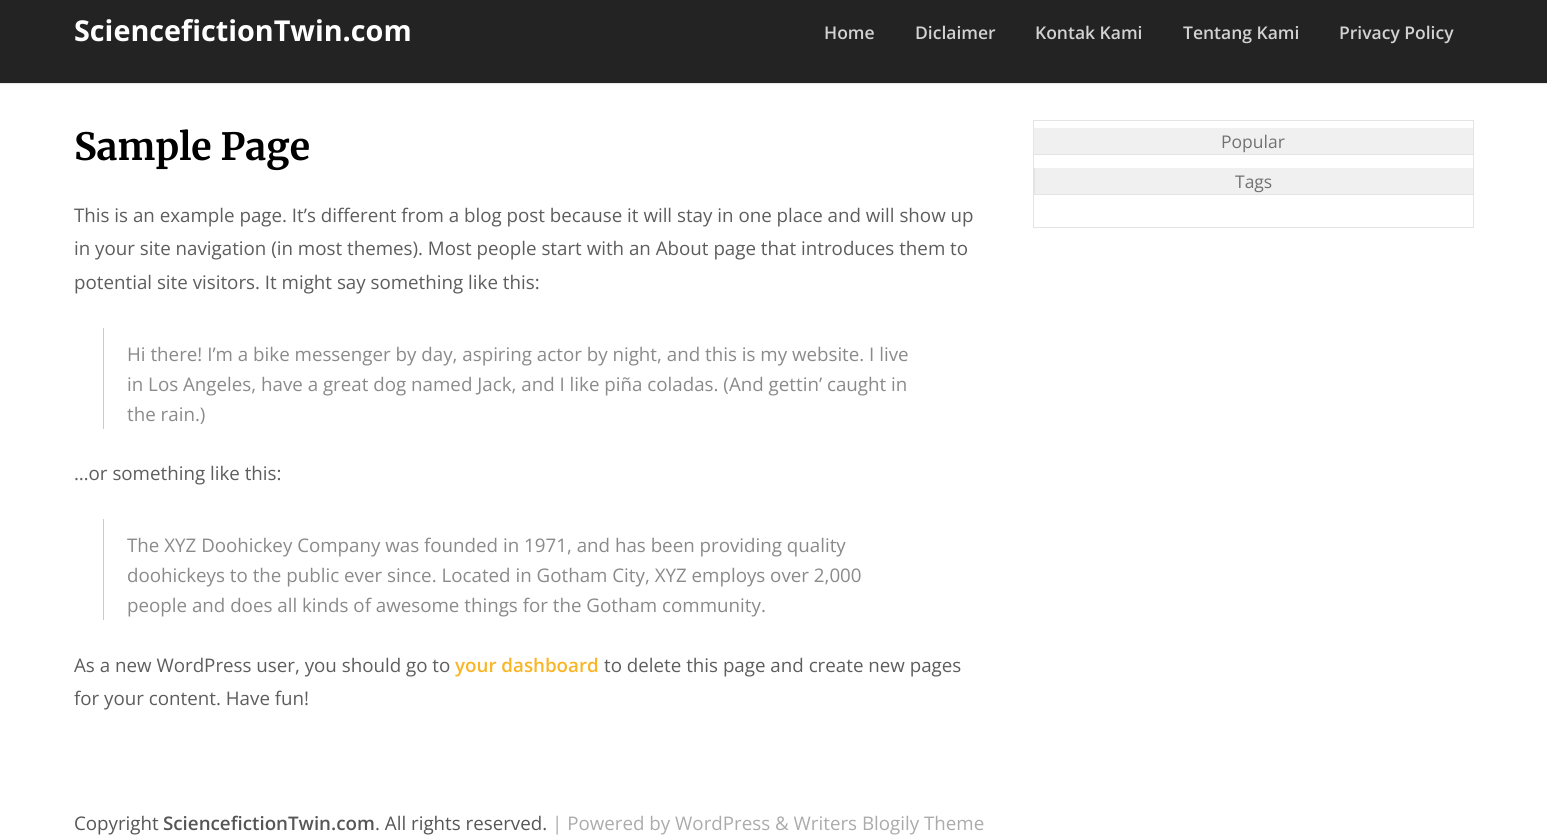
import math
import cairo

surface = cairo.ImageSurface(cairo.FORMAT_RGB24, 1547, 840)
ctx = cairo.Context(surface)
options = cairo.FontOptions()
options.set_hint_metrics(cairo.HINT_METRICS_OFF)
options.set_hint_style(cairo.HINT_STYLE_NONE)
ctx.set_font_options(options)
ctx.set_miter_limit(4)


def set_color(code):
    ctx.set_source_rgb(*(v / 255 for v in bytes.fromhex(code[-6:])))


def draw_text(x, y, s, family, size, color, bold=False, italic=False):
    ctx.select_font_face(family, cairo.FONT_SLANT_ITALIC if italic else cairo.FONT_SLANT_NORMAL, cairo.FONT_WEIGHT_BOLD if bold else cairo.FONT_WEIGHT_NORMAL)
    ctx.set_font_size(size)
    set_color(color)
    ctx.move_to(x, y)
    ctx.show_text(s)


def fill_rect(x, y, w, h, color):
    set_color(color)
    ctx.rectangle(x, y, w, h)
    ctx.fill()


def rounded_rect(x, y, w, h, r):
    ctx.new_sub_path()
    for i, (u, v) in enumerate([(x + w - r, y + h - r), (x + r, y + h - r), (x + r, y + r), (x + w - r, y + r)]):
        ctx.arc(u, v, r, i * math.pi / 2, (i + 1) * math.pi / 2)
    ctx.close_path()


def draw_shadow(x, y, w, h, r, blur, alpha):
    ctx.push_group_with_content(cairo.CONTENT_ALPHA)
    ctx.set_operator(cairo.OPERATOR_SOURCE)
    for i in range(15, -16, -2):
        e = blur * i / 6
        if min(w, h) + 2 * e > 0:
            ctx.set_source_rgba(0, 0, 0, alpha * math.erfc((i - 1) / 8.5) / 2)
            rounded_rect(x - e, y - e, w + 2 * e, h + 2 * e, max(0, min(r + e + blur * .6, min(w, h) / 2 + e)))
            ctx.fill()
    ctx.mask(ctx.pop_group())


set_color("#ffffff")
ctx.paint()
set_color("#000000")
draw_shadow(0, -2, 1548, 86, 0, 0.5, 0.1)
fill_rect(0, 0, 1547, 83, "#232323")
draw_text(74, 41, "SciencefictionTwin.com", "Open Sans", 28.75, "#ffffff", bold=True)
draw_text(824, 39, "Home", "Open Sans SemiBold", 17.5, "#d2d2d2")
draw_text(915, 39, "Diclaimer", "Open Sans SemiBold", 17.5, "#d2d2d2")
draw_text(1035, 39, "Kontak Kami", "Open Sans SemiBold", 17.5, "#d2d2d2")
draw_text(1183, 39, "Tentang Kami", "Open Sans SemiBold", 17.5, "#d2d2d2")
draw_text(1339, 39, "Privacy Policy", "Open Sans SemiBold", 17.5, "#d2d2d2")
draw_text(74, 160, "Sample Page", "Merriweather", 37.5, "#000000", bold=True)
draw_text(74, 222, "This is an example page. It’s different from a blog post because it will stay in one place and will show up", "Open Sans", 18.75, "#5d5d5d")
draw_text(74, 255, "in your site navigation (in most themes). Most people start with an About page that introduces them to", "Open Sans", 18.75, "#5d5d5d")
draw_text(74, 289, "potential site visitors. It might say something like this:", "Open Sans", 18.75, "#5d5d5d")
fill_rect(103, 328, 1, 101, "#cacaca")
draw_text(127, 361, "Hi there! I’m a bike messenger by day, aspiring actor by night, and this is my website. I live", "Open Sans", 18.75, "#8a8a8a")
draw_text(127, 391, "in Los Angeles, have a great dog named Jack, and I like piña coladas. (And gettin’ caught in", "Open Sans", 18.75, "#8a8a8a")
draw_text(127, 421, "the rain.)", "Open Sans", 18.75, "#8a8a8a")
draw_text(74, 480, "…or something like this:", "Open Sans", 18.75, "#5d5d5d")
fill_rect(103, 519, 1, 101, "#cacaca")
draw_text(127, 552, "The XYZ Doohickey Company was founded in 1971, and has been providing quality", "Open Sans", 18.75, "#8a8a8a")
draw_text(127, 582, "doohickeys to the public ever since. Located in Gotham City, XYZ employs over 2,000", "Open Sans", 18.75, "#8a8a8a")
draw_text(127, 612, "people and does all kinds of awesome things for the Gotham community.", "Open Sans", 18.75, "#8a8a8a")
draw_text(74, 672, "As a new WordPress user, you should go to", "Open Sans", 18.75, "#5d5d5d")
draw_text(455, 672, "your dashboard", "Open Sans SemiBold", 18.75, "#fab526")
draw_text(604, 672, "to delete this page and create new pages", "Open Sans", 18.75, "#5d5d5d")
draw_text(74, 705, "for your content. Have fun!", "Open Sans", 18.75, "#5d5d5d")
ctx.rectangle(1033.5, 120.5, 440, 107)
set_color("#e4e4e4")
ctx.set_line_width(1)
ctx.stroke()
fill_rect(1034, 128, 439, 26, "#f0f0f0")
fill_rect(1034, 154, 439, 1, "#e4e4e4")
draw_text(1221, 148, "Popular", "Open Sans", 17.5, "#727272")
fill_rect(1035, 168, 438, 26, "#f0f0f0")
fill_rect(1034, 194, 439, 1, "#e4e4e4")
fill_rect(1034, 168, 1, 27, "#e4e4e4")
draw_text(1235, 188, "Tags", "Open Sans", 17.5, "#727272")
draw_text(74, 830, "Copyright", "Open Sans", 18.75, "#565656")
draw_text(163, 830, "SciencefictionTwin.com", "Open Sans SemiBold", 18.75, "#565656")
draw_text(375, 830, ". All rights reserved.", "Open Sans", 18.75, "#565656")
draw_text(552, 830, "| Powered by WordPress & Writers Blogily Theme", "Open Sans", 18.75, "#ababab")
surface.write_to_png("output.png")
